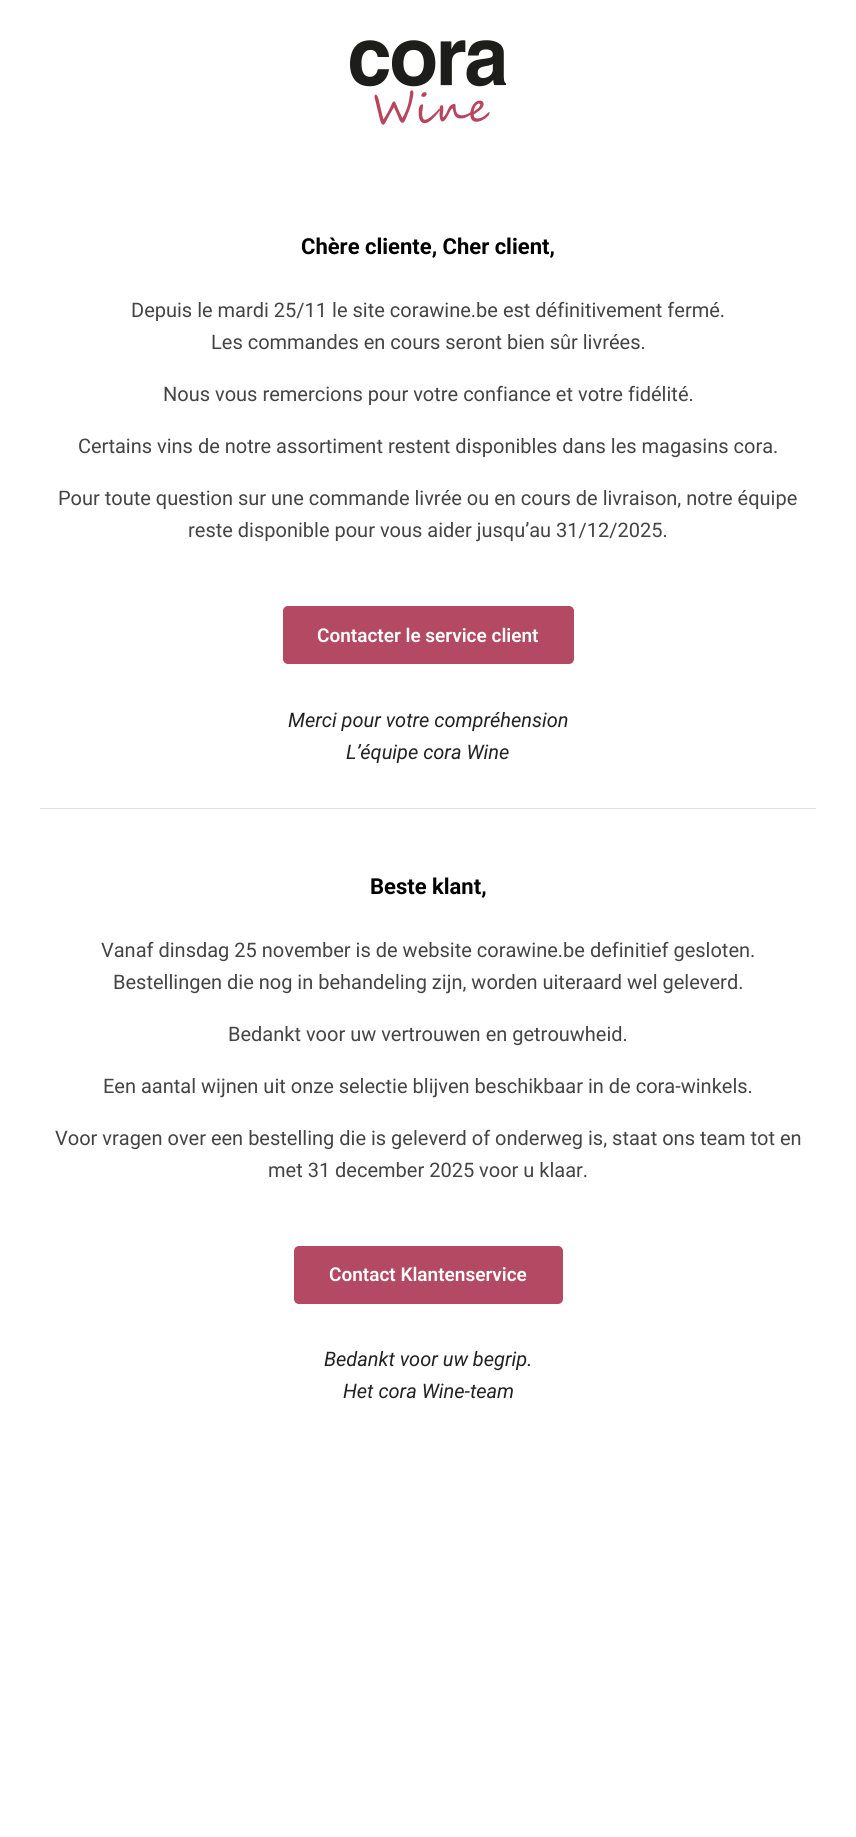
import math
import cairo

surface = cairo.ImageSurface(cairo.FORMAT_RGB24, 856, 1837)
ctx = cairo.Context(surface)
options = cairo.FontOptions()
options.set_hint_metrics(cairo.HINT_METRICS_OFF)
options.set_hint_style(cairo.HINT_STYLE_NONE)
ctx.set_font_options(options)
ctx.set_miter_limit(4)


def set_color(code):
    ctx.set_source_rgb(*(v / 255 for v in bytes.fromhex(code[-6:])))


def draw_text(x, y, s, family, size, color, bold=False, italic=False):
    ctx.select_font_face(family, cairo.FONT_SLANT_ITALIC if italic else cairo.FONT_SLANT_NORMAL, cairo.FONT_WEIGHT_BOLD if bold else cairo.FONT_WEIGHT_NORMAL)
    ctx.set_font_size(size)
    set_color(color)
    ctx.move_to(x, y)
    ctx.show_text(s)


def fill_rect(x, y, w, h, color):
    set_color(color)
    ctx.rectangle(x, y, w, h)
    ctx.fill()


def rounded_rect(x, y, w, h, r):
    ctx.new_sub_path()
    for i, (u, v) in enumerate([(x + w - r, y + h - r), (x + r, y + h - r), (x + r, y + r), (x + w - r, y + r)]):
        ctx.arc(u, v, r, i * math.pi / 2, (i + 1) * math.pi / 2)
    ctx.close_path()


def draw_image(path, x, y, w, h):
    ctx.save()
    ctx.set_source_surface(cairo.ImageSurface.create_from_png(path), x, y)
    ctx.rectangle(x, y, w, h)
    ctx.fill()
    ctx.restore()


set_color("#ffffff")
ctx.paint()
draw_image("assets/img1.png", 350, 40, 156, 85)
fill_rect(40, 808, 776, 1, "#e0e0e0")
draw_text(301, 254, "Chère cliente, Cher client,", "Roboto", 22, "#000000", bold=True)
draw_text(131, 317, "Depuis le mardi 25/11 le site corawine.be est définitivement fermé.", "Roboto", 20, "#444444")
draw_text(211, 349, "Les commandes en cours seront bien sûr livrées.", "Roboto", 20, "#444444")
draw_text(163, 401, "Nous vous remercions pour votre confiance et votre fidélité.", "Roboto", 20, "#444444")
draw_text(78, 453, "Certains vins de notre assortiment restent disponibles dans les magasins cora.", "Roboto", 20, "#444444")
draw_text(58, 505, "Pour toute question sur une commande livrée ou en cours de livraison, notre équipe", "Roboto", 20, "#444444")
draw_text(188, 537, "reste disponible pour vous aider jusqu’au 31/12/2025.", "Roboto", 20, "#444444")
set_color("#b34962")
rounded_rect(283, 606, 291, 58, 5)
ctx.fill()
draw_text(317, 642, "Contacter le service client", "Roboto SemiBold", 19, "#ffffff")
draw_text(288, 727, "Merci pour votre compréhension", "Roboto", 20, "#222222", italic=True)
draw_text(346, 759, "L’équipe cora Wine", "Roboto", 20, "#222222", italic=True)
draw_text(370, 894, "Beste klant,", "Roboto", 22, "#000000", bold=True)
draw_text(101, 957, "Vanaf dinsdag 25 november is de website corawine.be definitief gesloten.", "Roboto", 20, "#444444")
draw_text(113, 989, "Bestellingen die nog in behandeling zijn, worden uiteraard wel geleverd.", "Roboto", 20, "#444444")
draw_text(228, 1041, "Bedankt voor uw vertrouwen en getrouwheid.", "Roboto", 20, "#444444")
draw_text(103, 1093, "Een aantal wijnen uit onze selectie blijven beschikbaar in de cora-winkels.", "Roboto", 20, "#444444")
draw_text(55, 1145, "Voor vragen over een bestelling die is geleverd of onderweg is, staat ons team tot en", "Roboto", 20, "#444444")
draw_text(268, 1177, "met 31 december 2025 voor u klaar.", "Roboto", 20, "#444444")
set_color("#b34962")
rounded_rect(294, 1246, 269, 58, 5)
ctx.fill()
draw_text(329, 1281, "Contact Klantenservice", "Roboto SemiBold", 19, "#ffffff")
draw_text(324, 1366, "Bedankt voor uw begrip.", "Roboto", 20, "#222222", italic=True)
draw_text(343, 1398, "Het cora Wine-team", "Roboto", 20, "#222222", italic=True)
surface.write_to_png("output.png")
